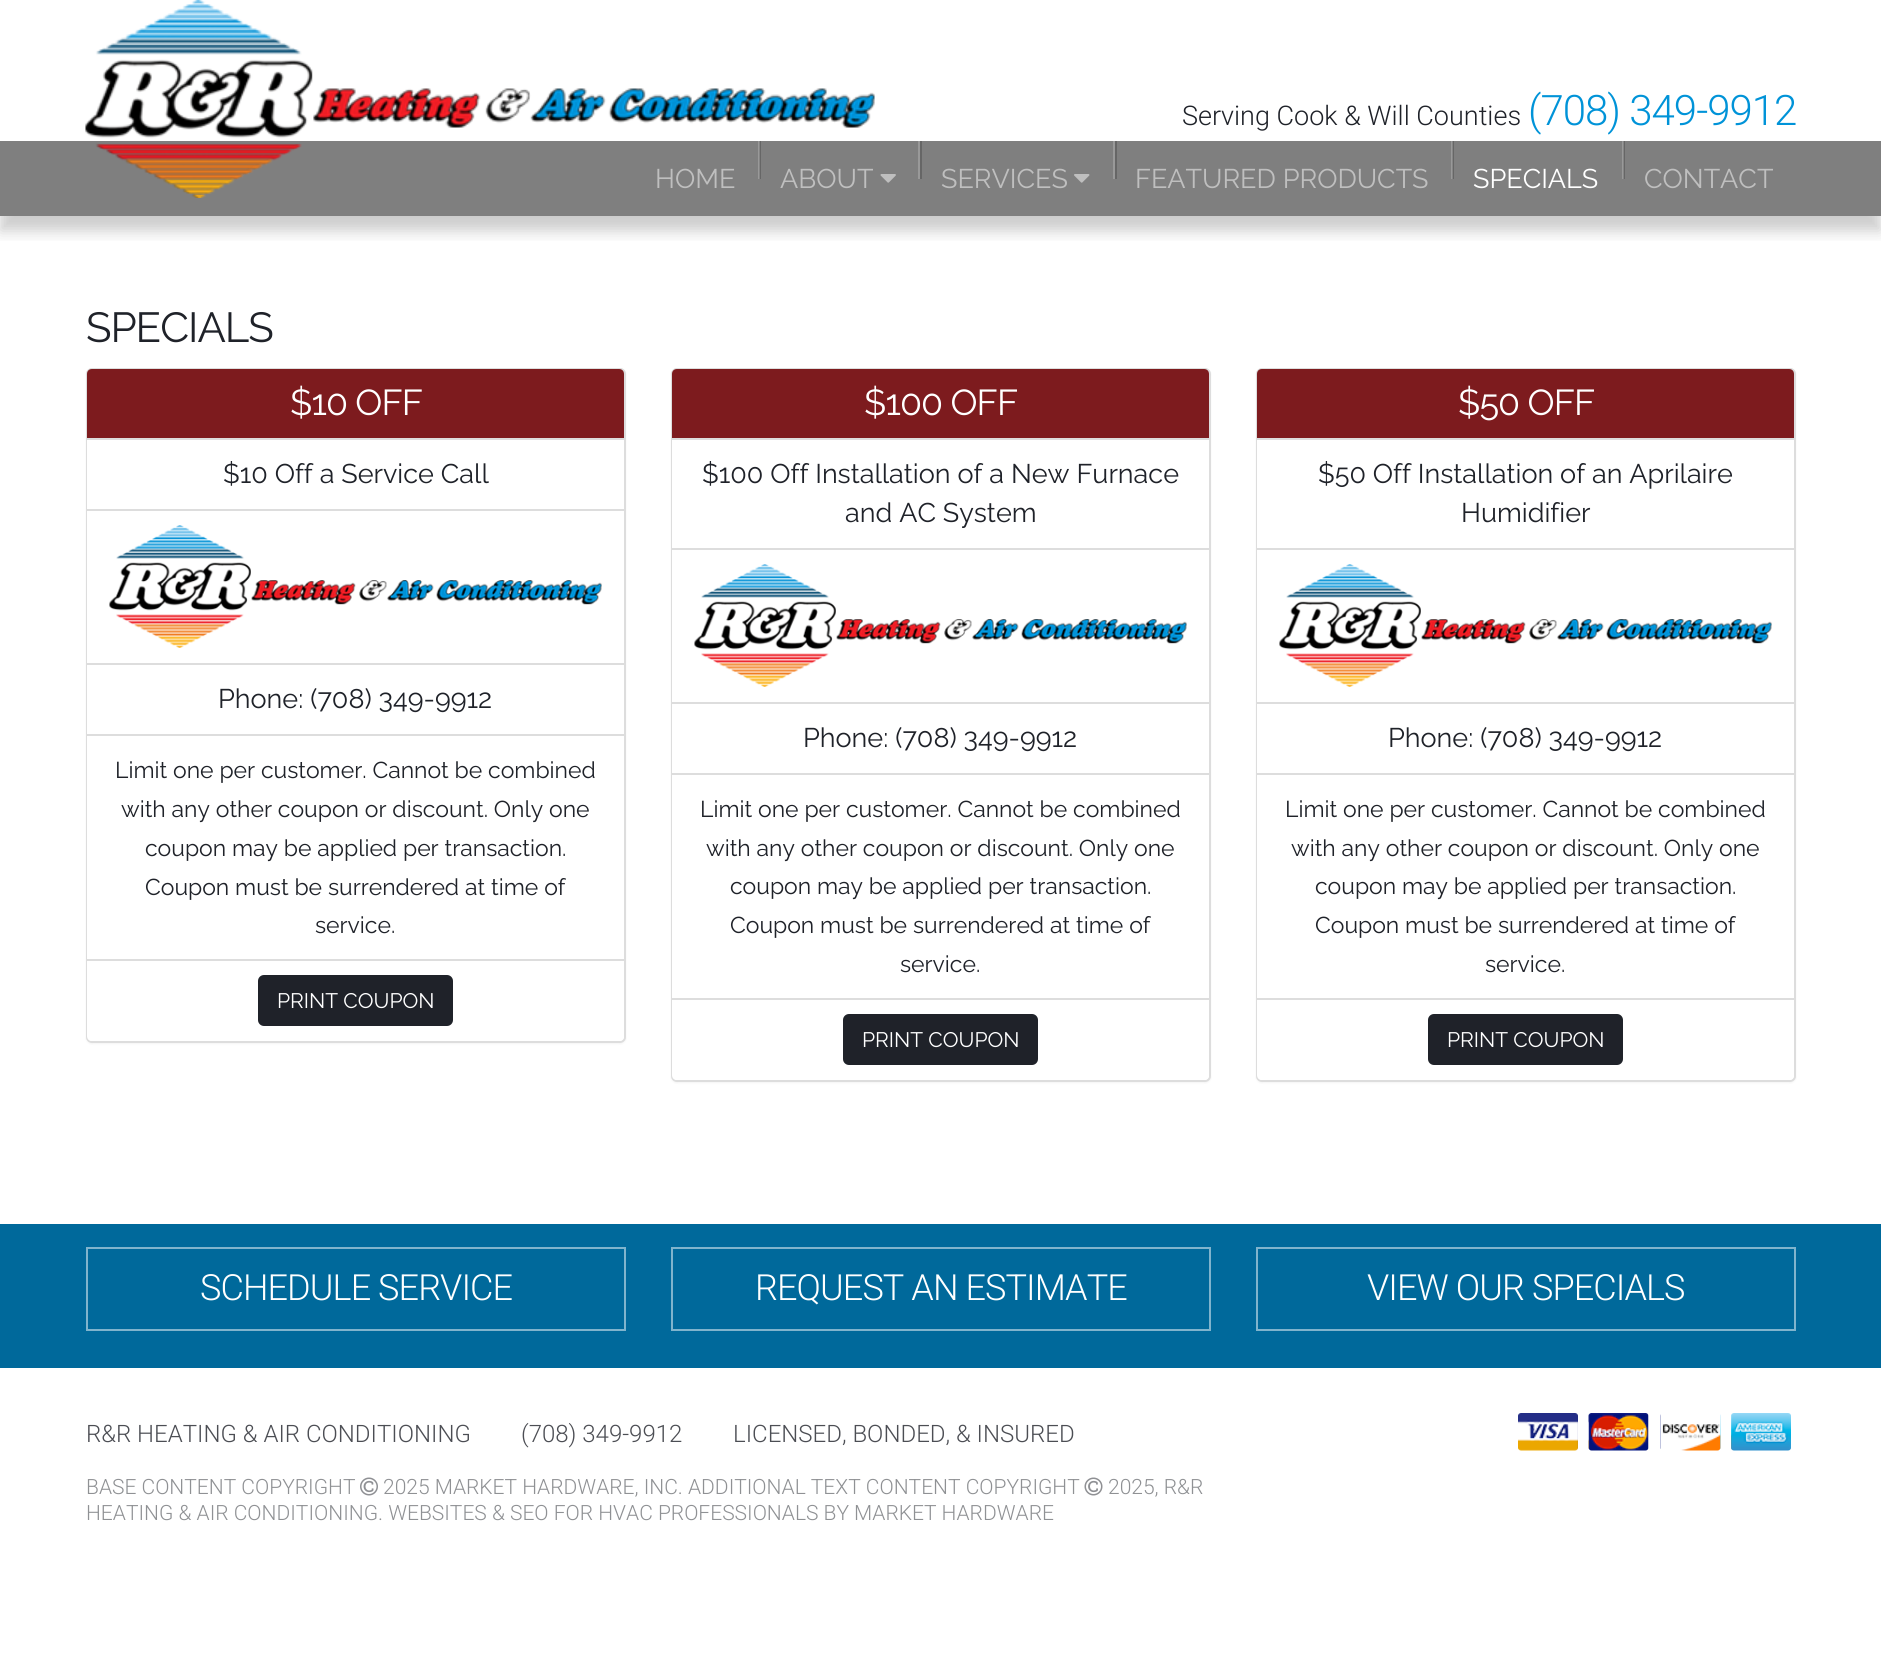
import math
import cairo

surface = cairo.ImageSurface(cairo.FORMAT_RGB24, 1881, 1670)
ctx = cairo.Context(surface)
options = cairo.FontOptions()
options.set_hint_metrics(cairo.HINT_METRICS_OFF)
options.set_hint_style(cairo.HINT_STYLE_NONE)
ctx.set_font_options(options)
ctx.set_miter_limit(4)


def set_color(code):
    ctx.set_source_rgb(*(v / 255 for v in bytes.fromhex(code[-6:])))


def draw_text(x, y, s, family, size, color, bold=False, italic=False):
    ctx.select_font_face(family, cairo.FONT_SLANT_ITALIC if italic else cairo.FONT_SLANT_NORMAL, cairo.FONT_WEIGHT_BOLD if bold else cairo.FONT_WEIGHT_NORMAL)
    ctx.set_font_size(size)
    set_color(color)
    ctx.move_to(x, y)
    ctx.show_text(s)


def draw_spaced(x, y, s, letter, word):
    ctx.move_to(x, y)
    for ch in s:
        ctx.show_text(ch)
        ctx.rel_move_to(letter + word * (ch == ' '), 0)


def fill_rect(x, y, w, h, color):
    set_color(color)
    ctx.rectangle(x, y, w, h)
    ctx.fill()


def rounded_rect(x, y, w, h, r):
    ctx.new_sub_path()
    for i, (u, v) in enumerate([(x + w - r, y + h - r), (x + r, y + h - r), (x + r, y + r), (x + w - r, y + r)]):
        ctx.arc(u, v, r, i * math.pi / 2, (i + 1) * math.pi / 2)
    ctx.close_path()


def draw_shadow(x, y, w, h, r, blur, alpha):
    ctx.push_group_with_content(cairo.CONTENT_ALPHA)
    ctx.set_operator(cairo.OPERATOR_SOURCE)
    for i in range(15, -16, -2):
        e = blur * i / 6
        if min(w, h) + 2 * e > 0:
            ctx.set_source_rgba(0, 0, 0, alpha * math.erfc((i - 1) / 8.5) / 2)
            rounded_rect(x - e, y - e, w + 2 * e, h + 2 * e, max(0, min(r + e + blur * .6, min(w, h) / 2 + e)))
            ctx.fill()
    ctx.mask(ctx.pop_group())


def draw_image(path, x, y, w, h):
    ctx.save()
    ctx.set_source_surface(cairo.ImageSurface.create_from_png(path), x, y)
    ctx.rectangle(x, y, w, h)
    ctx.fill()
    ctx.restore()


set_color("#ffffff")
ctx.paint()
ctx.save()
ctx.rectangle(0, 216, 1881, 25)
ctx.clip()
set_color("#000000")
draw_shadow(0, 15, 1881, 216, 0, 7.5, 0.2)
ctx.restore()
draw_image("assets/img1.png", 85, 0, 790, 198)
draw_text(1182, 125, "Serving Cook & Will Counties", "Roboto Light", 27, "#1f2229")
ctx.set_font_size(42)
set_color("#0093d8")
draw_spaced(1528, 125, "(708) 349-9912", -1, 0)
ctx.set_source_rgba(0, 0, 0, 0.5)
ctx.rectangle(0, 141, 1881, 75)
ctx.fill()
draw_image("assets/img2.png", 97, 144, 205, 54)
draw_text(655, 188, "HOME", "Raleway", 27, "#bfbfbf")
fill_rect(759, 141, 2, 38, "#666666")
ctx.set_source_rgba(1, 1, 1, 0.2)
ctx.rectangle(758, 141, 2, 38)
ctx.fill()
draw_text(780, 188, "ABOUT", "Raleway", 27, "#bfbfbf")
draw_image("assets/img3.png", 880, 174, 16, 9)
fill_rect(920, 141, 2, 38, "#666666")
fill_rect(918, 141, 2, 38, "#999999")
draw_text(941, 188, "SERVICES", "Raleway", 27, "#bfbfbf")
draw_image("assets/img4.png", 1074, 174, 16, 9)
fill_rect(1115, 141, 2, 38, "#666666")
fill_rect(1113, 141, 2, 38, "#999999")
draw_text(1135, 188, "FEATURED PRODUCTS", "Raleway", 27, "#bfbfbf")
fill_rect(1452, 141, 2, 38, "#666666")
ctx.set_source_rgba(1, 1, 1, 0.2)
ctx.rectangle(1451, 141, 2, 38)
ctx.fill()
draw_text(1473, 188, "SPECIALS", "Raleway", 27, "#ffffff")
fill_rect(1623, 141, 2, 38, "#666666")
ctx.set_source_rgba(1, 1, 1, 0.2)
ctx.rectangle(1622, 141, 2, 38)
ctx.fill()
draw_text(1644, 188, "CONTACT", "Raleway", 27, "#bfbfbf")
ctx.set_font_size(42)
set_color("#1f2229")
draw_spaced(86, 342, "SPECIALS", -1, 0)
set_color("#000000")
draw_shadow(86, 369, 540, 675, 6, 1, 0.05)
set_color("#ffffff")
rounded_rect(87, 369, 538, 673, 5)
ctx.fill_preserve()
set_color("#dddddd")
ctx.stroke()
set_color("#7d1b1e")
ctx.new_path()
ctx.move_to(92, 369)
ctx.line_to(619, 369)
ctx.curve_to(622, 369, 624, 371, 624, 374)
ctx.line_to(624, 440)
ctx.line_to(87, 440)
ctx.line_to(87, 374)
ctx.curve_to(87, 371, 89, 369, 92, 369)
ctx.close_path()
ctx.fill()
fill_rect(87, 438, 537, 2, "#dddddd")
ctx.set_font_size(36)
set_color("#ffffff")
draw_spaced(290, 415, "$10 OFF", -0.9, 0)
fill_rect(87, 440, 1, 69, "#ffffff")
draw_text(223, 483, "$10 Off a Service Call", "Raleway", 27, "#1f2229")
fill_rect(87, 511, 1, 152, "#ffffff")
fill_rect(87, 509, 537, 2, "#dddddd")
fill_rect(87, 663, 537, 2, "#dddddd")
draw_image("assets/img5.png", 109, 525, 493, 123)
fill_rect(87, 665, 1, 69, "#ffffff")
draw_text(218, 708, "Phone: (708) 349-9912", "Raleway", 27, "#1f2229")
fill_rect(87, 736, 1, 223, "#ffffff")
fill_rect(87, 734, 537, 2, "#dddddd")
draw_text(115, 778, "Limit one per customer. Cannot be combined", "Raleway", 22.95, "#1f2229")
draw_text(121, 817, "with any other coupon or discount. Only one", "Raleway", 22.95, "#1f2229")
draw_text(145, 856, "coupon may be applied per transaction.", "Raleway", 22.95, "#1f2229")
draw_text(145, 895, "Coupon must be surrendered at time of", "Raleway", 22.95, "#1f2229")
draw_text(315, 933, "service.", "Raleway", 22.95, "#1f2229")
set_color("#ffffff")
ctx.new_path()
ctx.move_to(87, 959)
ctx.line_to(624, 959)
ctx.line_to(624, 1036)
ctx.curve_to(624, 1039, 622, 1041, 619, 1041)
ctx.line_to(92, 1041)
ctx.curve_to(89, 1041, 87, 1039, 87, 1036)
ctx.close_path()
ctx.fill()
fill_rect(87, 959, 537, 2, "#dddddd")
set_color("#1f2229")
rounded_rect(259, 976, 193, 49, 5)
ctx.fill_preserve()
ctx.stroke()
draw_text(277, 1008, "PRINT COUPON", "Raleway", 21, "#ffffff")
set_color("#000000")
draw_shadow(671, 369, 540, 714, 6, 1, 0.05)
set_color("#ffffff")
rounded_rect(672, 369, 538, 712, 5)
ctx.fill_preserve()
set_color("#dddddd")
ctx.stroke()
set_color("#7d1b1e")
ctx.new_path()
ctx.move_to(677, 369)
ctx.line_to(1204, 369)
ctx.curve_to(1207, 369, 1209, 371, 1209, 374)
ctx.line_to(1209, 440)
ctx.line_to(672, 440)
ctx.line_to(672, 374)
ctx.curve_to(672, 371, 674, 369, 677, 369)
ctx.close_path()
ctx.fill()
fill_rect(672, 438, 537, 2, "#dddddd")
ctx.set_font_size(36)
set_color("#ffffff")
draw_spaced(864, 415, "$100 OFF", -0.9, 0)
fill_rect(672, 440, 1, 108, "#ffffff")
draw_text(702, 483, "$100 Off Installation of a New Furnace", "Raleway", 27, "#1f2229")
draw_text(845, 522, "and AC System", "Raleway", 27, "#1f2229")
fill_rect(672, 550, 1, 152, "#ffffff")
fill_rect(672, 548, 537, 2, "#dddddd")
fill_rect(672, 702, 537, 2, "#dddddd")
draw_image("assets/img5.png", 694, 564, 493, 123)
fill_rect(672, 704, 1, 69, "#ffffff")
draw_text(803, 747, "Phone: (708) 349-9912", "Raleway", 27, "#1f2229")
fill_rect(672, 775, 1, 223, "#ffffff")
fill_rect(672, 773, 537, 2, "#dddddd")
draw_text(700, 817, "Limit one per customer. Cannot be combined", "Raleway", 22.95, "#1f2229")
draw_text(706, 856, "with any other coupon or discount. Only one", "Raleway", 22.95, "#1f2229")
draw_text(730, 894, "coupon may be applied per transaction.", "Raleway", 22.95, "#1f2229")
draw_text(730, 933, "Coupon must be surrendered at time of", "Raleway", 22.95, "#1f2229")
draw_text(900, 972, "service.", "Raleway", 22.95, "#1f2229")
set_color("#ffffff")
ctx.new_path()
ctx.move_to(672, 998)
ctx.line_to(1209, 998)
ctx.line_to(1209, 1075)
ctx.curve_to(1209, 1078, 1207, 1080, 1204, 1080)
ctx.line_to(677, 1080)
ctx.curve_to(674, 1080, 672, 1078, 672, 1075)
ctx.close_path()
ctx.fill()
fill_rect(672, 998, 537, 2, "#dddddd")
set_color("#1f2229")
rounded_rect(844, 1015, 193, 49, 5)
ctx.fill_preserve()
ctx.stroke()
draw_text(862, 1047, "PRINT COUPON", "Raleway", 21, "#ffffff")
set_color("#000000")
draw_shadow(1256, 369, 540, 714, 6, 1, 0.05)
set_color("#ffffff")
rounded_rect(1257, 369, 538, 712, 5)
ctx.fill_preserve()
set_color("#dddddd")
ctx.stroke()
set_color("#7d1b1e")
ctx.new_path()
ctx.move_to(1262, 369)
ctx.line_to(1789, 369)
ctx.curve_to(1792, 369, 1794, 371, 1794, 374)
ctx.line_to(1794, 440)
ctx.line_to(1257, 440)
ctx.line_to(1257, 374)
ctx.curve_to(1257, 371, 1259, 369, 1262, 369)
ctx.close_path()
ctx.fill()
fill_rect(1257, 438, 537, 2, "#dddddd")
ctx.set_font_size(36)
set_color("#ffffff")
draw_spaced(1458, 415, "$50 OFF", -0.9, 0)
fill_rect(1257, 440, 1, 108, "#ffffff")
draw_text(1318, 483, "$50 Off Installation of an Aprilaire", "Raleway", 27, "#1f2229")
draw_text(1461, 522, "Humidifier", "Raleway", 27, "#1f2229")
fill_rect(1257, 550, 1, 152, "#ffffff")
fill_rect(1257, 548, 537, 2, "#dddddd")
fill_rect(1257, 702, 537, 2, "#dddddd")
draw_image("assets/img5.png", 1279, 564, 493, 123)
fill_rect(1257, 704, 1, 69, "#ffffff")
draw_text(1388, 747, "Phone: (708) 349-9912", "Raleway", 27, "#1f2229")
fill_rect(1257, 775, 1, 223, "#ffffff")
fill_rect(1257, 773, 537, 2, "#dddddd")
draw_text(1285, 817, "Limit one per customer. Cannot be combined", "Raleway", 22.95, "#1f2229")
draw_text(1291, 856, "with any other coupon or discount. Only one", "Raleway", 22.95, "#1f2229")
draw_text(1315, 894, "coupon may be applied per transaction.", "Raleway", 22.95, "#1f2229")
draw_text(1315, 933, "Coupon must be surrendered at time of", "Raleway", 22.95, "#1f2229")
draw_text(1485, 972, "service.", "Raleway", 22.95, "#1f2229")
set_color("#ffffff")
ctx.new_path()
ctx.move_to(1257, 998)
ctx.line_to(1794, 998)
ctx.line_to(1794, 1075)
ctx.curve_to(1794, 1078, 1792, 1080, 1789, 1080)
ctx.line_to(1262, 1080)
ctx.curve_to(1259, 1080, 1257, 1078, 1257, 1075)
ctx.close_path()
ctx.fill()
fill_rect(1257, 998, 537, 2, "#dddddd")
set_color("#1f2229")
rounded_rect(1429, 1015, 193, 49, 5)
ctx.fill_preserve()
ctx.stroke()
draw_text(1447, 1047, "PRINT COUPON", "Raleway", 21, "#ffffff")
fill_rect(0, 1224, 1881, 144, "#00699b")
ctx.rectangle(87, 1248, 538, 82)
set_color("#80b4cd")
ctx.stroke()
ctx.select_font_face("Roboto Light")
ctx.set_font_size(36)
set_color("#ffffff")
draw_spaced(200, 1300, "SCHEDULE SERVICE", -0.9, 0)
ctx.rectangle(672, 1248, 538, 82)
set_color("#80b4cd")
ctx.stroke()
set_color("#ffffff")
draw_spaced(755, 1300, "REQUEST AN ESTIMATE", -0.9, 0)
ctx.rectangle(1257, 1248, 538, 82)
set_color("#80b4cd")
ctx.stroke()
set_color("#ffffff")
draw_spaced(1367, 1300, "VIEW OUR SPECIALS", -0.9, 0)
draw_text(86, 1442, "R&R HEATING & AIR CONDITIONING", "Roboto Light", 24, "#4c4e54")
draw_text(521, 1442, "(708) 349-9912", "Roboto Light", 24, "#4c4e54")
draw_text(733, 1442, "LICENSED, BONDED, & INSURED", "Roboto Light", 24, "#4c4e54")
draw_text(86, 1494, "BASE CONTENT COPYRIGHT", "Roboto Light", 21, "#8f9194")
draw_image("assets/img6.png", 360, 1477, 18, 19)
draw_text(383, 1494, "2025 MARKET HARDWARE, INC. ADDITIONAL TEXT CONTENT COPYRIGHT", "Roboto Light", 21, "#8f9194")
draw_image("assets/img7.png", 1084, 1477, 19, 19)
draw_text(1108, 1494, "2025, R&R", "Roboto Light", 21, "#8f9194")
draw_text(86, 1520, "HEATING & AIR CONDITIONING. WEBSITES & SEO FOR HVAC PROFESSIONALS BY MARKET HARDWARE", "Roboto Light", 21, "#8f9194")
draw_image("assets/img8.png", 1518, 1413, 60, 38)
draw_image("assets/img9.png", 1588, 1413, 61, 38)
draw_image("assets/img10.png", 1660, 1414, 61, 37)
draw_image("assets/img11.png", 1731, 1413, 60, 38)
surface.write_to_png("output.png")
